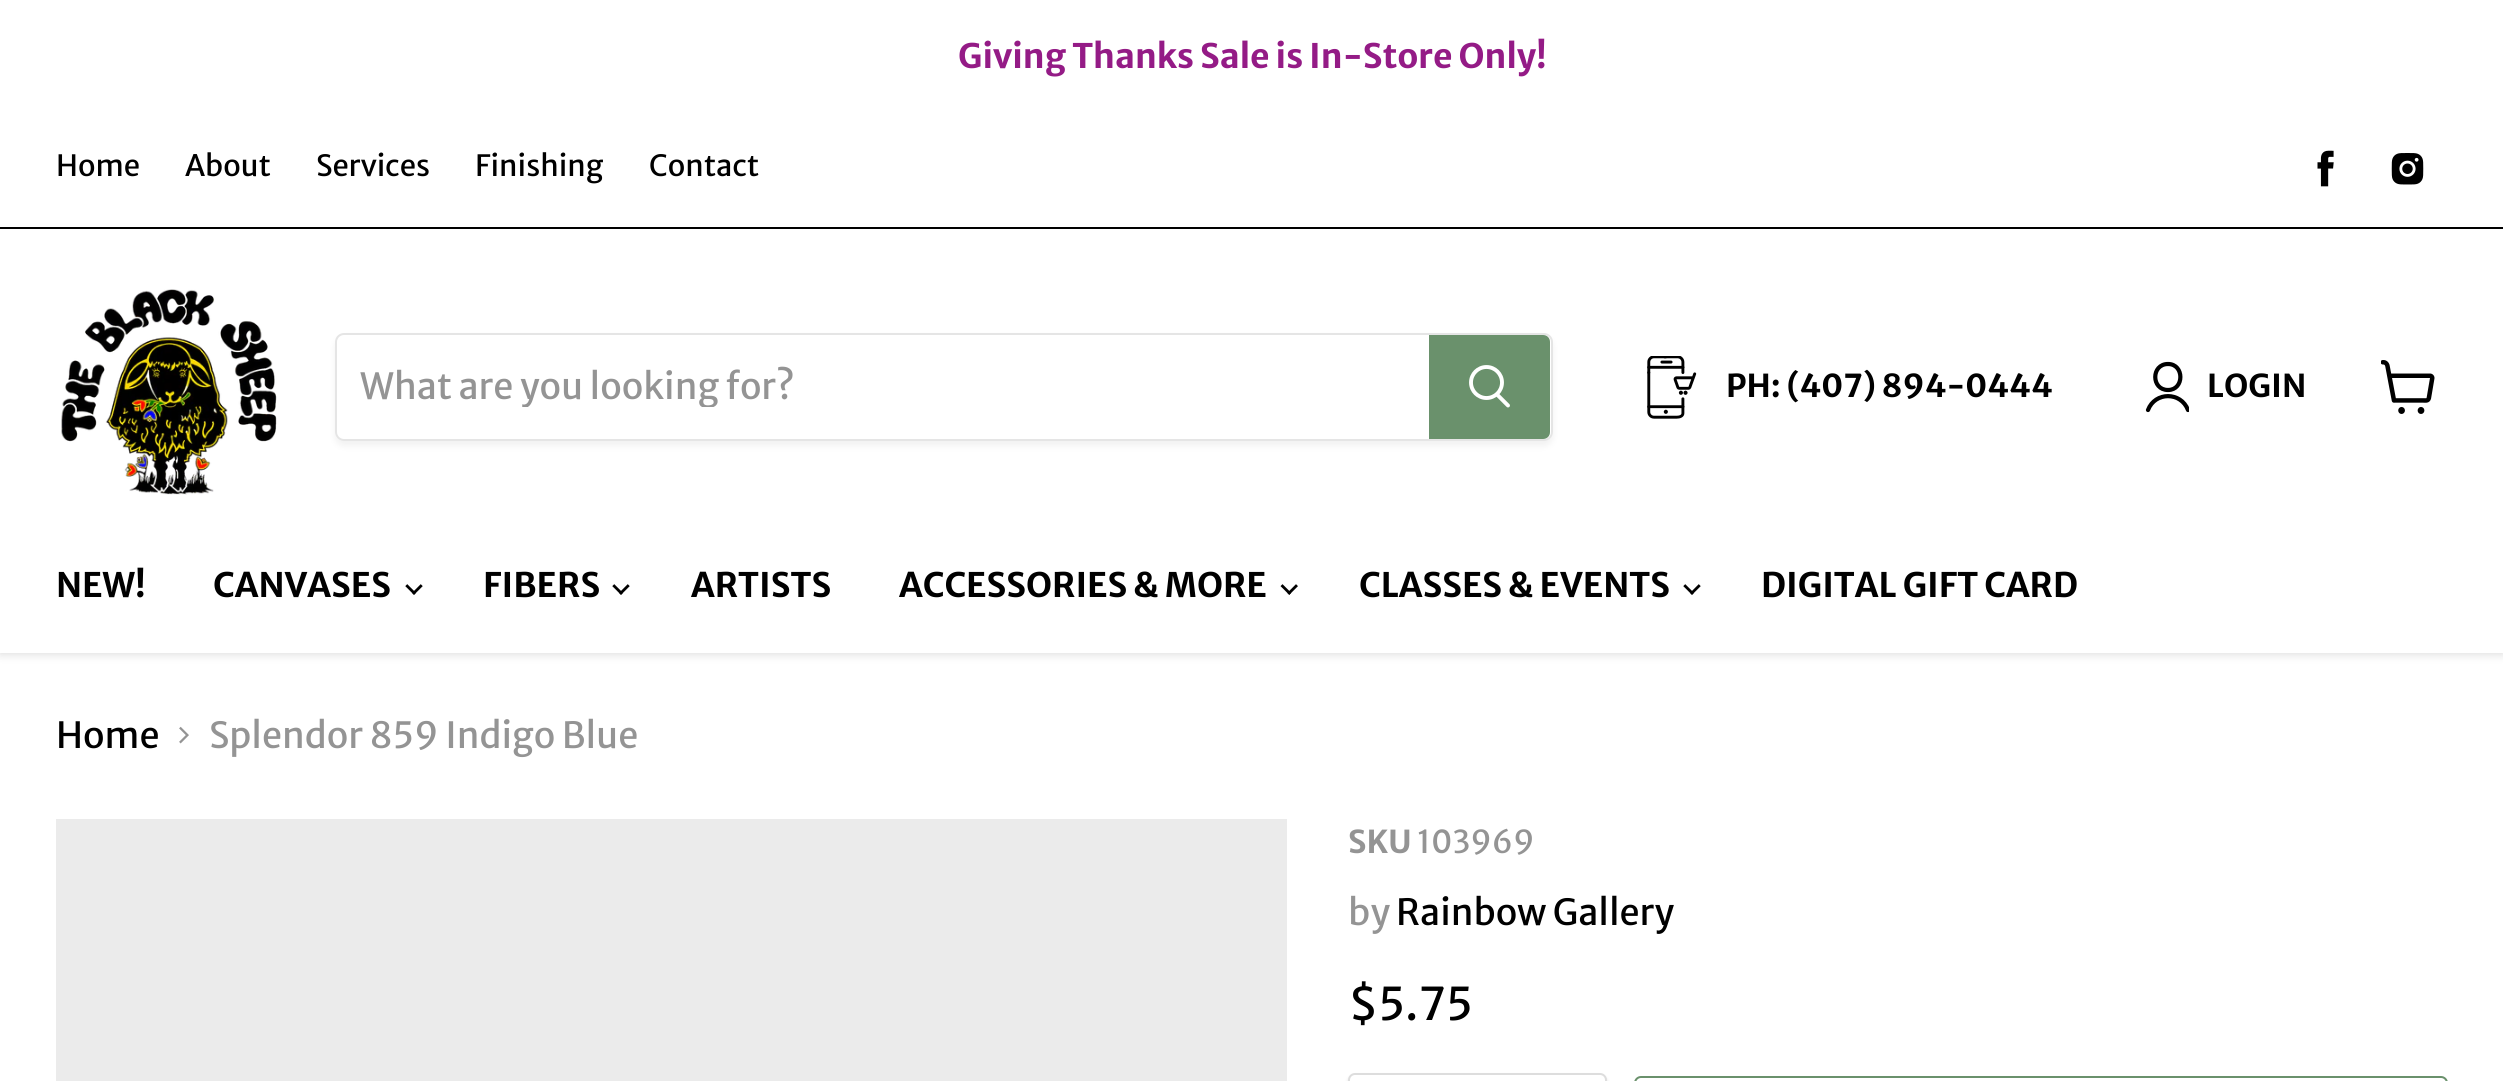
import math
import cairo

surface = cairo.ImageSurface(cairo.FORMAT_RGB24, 2503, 1081)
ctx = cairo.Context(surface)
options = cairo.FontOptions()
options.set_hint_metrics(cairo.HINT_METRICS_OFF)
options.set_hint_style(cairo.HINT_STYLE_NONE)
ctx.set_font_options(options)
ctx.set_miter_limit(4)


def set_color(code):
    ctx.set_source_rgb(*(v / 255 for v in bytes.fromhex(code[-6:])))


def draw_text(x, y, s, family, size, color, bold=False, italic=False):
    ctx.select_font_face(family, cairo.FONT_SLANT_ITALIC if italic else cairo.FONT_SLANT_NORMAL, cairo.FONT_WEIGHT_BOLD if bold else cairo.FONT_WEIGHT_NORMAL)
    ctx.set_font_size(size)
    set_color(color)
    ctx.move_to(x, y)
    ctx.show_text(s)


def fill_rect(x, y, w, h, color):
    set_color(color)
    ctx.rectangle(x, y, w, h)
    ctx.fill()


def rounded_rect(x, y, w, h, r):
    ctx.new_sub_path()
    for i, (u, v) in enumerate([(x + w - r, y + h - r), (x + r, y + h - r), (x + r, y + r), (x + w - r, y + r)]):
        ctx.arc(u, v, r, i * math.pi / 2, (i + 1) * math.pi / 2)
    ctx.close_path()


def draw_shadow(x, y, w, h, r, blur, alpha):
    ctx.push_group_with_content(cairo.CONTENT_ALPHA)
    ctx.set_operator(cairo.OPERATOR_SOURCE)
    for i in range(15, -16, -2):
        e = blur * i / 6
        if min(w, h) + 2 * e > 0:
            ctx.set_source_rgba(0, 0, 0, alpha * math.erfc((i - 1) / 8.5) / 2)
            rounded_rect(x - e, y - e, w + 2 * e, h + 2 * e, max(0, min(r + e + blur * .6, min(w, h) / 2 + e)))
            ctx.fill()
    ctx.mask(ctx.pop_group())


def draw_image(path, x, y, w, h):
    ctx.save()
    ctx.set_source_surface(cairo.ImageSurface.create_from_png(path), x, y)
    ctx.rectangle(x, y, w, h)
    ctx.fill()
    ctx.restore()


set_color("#ffffff")
ctx.paint()
draw_text(958, 68, "Giving Thanks Sale is In-Store Only!", "Merriweather Sans", 33.75, "#941b86", bold=True)
set_color("#808080")
draw_shadow(0, 232, 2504, 423, 0, 4.5, 0.25)
fill_rect(0, 226, 2503, 427, "#ffffff")
fill_rect(0, 227, 2503, 2, "#000000")
draw_text(56, 176, "Home", "Merriweather Sans", 29.25, "#000000")
draw_text(185, 176, "About", "Merriweather Sans", 29.25, "#000000")
draw_text(316, 176, "Services", "Merriweather Sans", 29.25, "#000000")
draw_text(475, 176, "Finishing", "Merriweather Sans", 29.25, "#000000")
draw_text(649, 176, "Contact", "Merriweather Sans", 29.25, "#000000")
draw_image("assets/img1.png", 2317, 150, 17, 37)
draw_image("assets/img2.png", 2391, 153, 33, 32)
draw_image("assets/img3.png", 61, 289, 216, 206)
ctx.save()
ctx.set_fill_rule(cairo.FILL_RULE_EVEN_ODD)
ctx.new_path()
ctx.move_to(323, 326)
ctx.line_to(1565, 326)
ctx.line_to(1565, 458)
ctx.line_to(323, 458)
ctx.close_path()
ctx.move_to(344, 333)
ctx.line_to(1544, 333)
ctx.curve_to(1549, 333, 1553, 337, 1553, 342)
ctx.line_to(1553, 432)
ctx.curve_to(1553, 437, 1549, 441, 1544, 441)
ctx.line_to(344, 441)
ctx.curve_to(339, 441, 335, 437, 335, 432)
ctx.line_to(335, 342)
ctx.curve_to(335, 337, 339, 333, 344, 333)
ctx.close_path()
ctx.clip()
set_color("#808080")
draw_shadow(335, 338, 1218, 108, 9, 3.5, 0.11)
ctx.restore()
rounded_rect(336, 334, 1216, 106, 8)
ctx.set_source_rgba(0.502, 0.502, 0.502, 0.2)
ctx.stroke()
ctx.save()
ctx.rectangle(360, 362, 1046, 45)
ctx.clip()
draw_text(360, 399, "What are you looking for?", "Merriweather Sans", 36, "#949494")
ctx.restore()
set_color("#6a916c")
ctx.new_path()
ctx.move_to(1430, 336)
ctx.line_to(1543, 336)
ctx.curve_to(1546.5, 336, 1549, 338.5, 1549, 342)
ctx.line_to(1549, 432)
ctx.curve_to(1549, 435.5, 1546.5, 438, 1543, 438)
ctx.line_to(1430, 438)
ctx.close_path()
ctx.fill_preserve()
ctx.stroke()
ctx.new_path()
ctx.move_to(1508, 405.5)
ctx.line_to(1497.5, 395)
set_color("#ffffff")
ctx.set_line_width(3.9)
ctx.set_line_cap(cairo.LINE_CAP_ROUND)
ctx.stroke()
ctx.arc(1486.5, 382.5, 15.5, 0, 2 * math.pi)
ctx.set_line_cap(cairo.LINE_CAP_BUTT)
ctx.stroke()
draw_image("assets/img4.png", 1647, 356, 50, 63)
draw_text(1726, 397, "PH: (407) 894-0444", "Merriweather Sans", 31.5, "#000000", bold=True)
ctx.new_path()
ctx.move_to(2168, 390)
ctx.curve_to(2184.5, 390, 2184.5, 364, 2168, 364)
ctx.curve_to(2151, 364, 2151, 390, 2168, 390)
ctx.close_path()
ctx.set_line_width(4.2)
ctx.set_line_cap(cairo.LINE_CAP_ROUND)
ctx.set_line_join(cairo.LINE_JOIN_ROUND)
ctx.stroke()
ctx.save()
ctx.rectangle(2144, 360, 45, 54)
ctx.clip()
ctx.new_path()
ctx.move_to(2188, 410)
ctx.curve_to(2181, 391.5, 2155, 391.5, 2148, 410)
ctx.stroke()
ctx.restore()
draw_text(2207, 397, "LOGIN", "Merriweather Sans", 31.5, "#000000", bold=True)
draw_image("assets/img5.png", 2381, 360, 54, 54)
draw_text(56, 597, "NEW!", "Merriweather Sans", 33.75, "#000000", bold=True)
draw_text(213, 597, "CANVASES", "Merriweather Sans", 33.75, "#000000", bold=True)
draw_image("assets/img6.png", 405, 584, 18, 11)
draw_text(483, 597, "FIBERS", "Merriweather Sans", 33.75, "#000000", bold=True)
draw_image("assets/img6.png", 612, 584, 18, 11)
draw_text(691, 597, "ARTISTS", "Merriweather Sans", 33.75, "#000000", bold=True)
draw_text(899, 597, "ACCESSORIES & MORE", "Merriweather Sans", 33.75, "#000000", bold=True)
draw_image("assets/img7.png", 1280, 584, 18, 11)
draw_text(1359, 597, "CLASSES & EVENTS", "Merriweather Sans", 33.75, "#000000", bold=True)
draw_image("assets/img6.png", 1683, 584, 18, 11)
draw_text(1761, 597, "DIGITAL GIFT CARD", "Merriweather Sans", 33.75, "#000000", bold=True)
draw_text(56, 748, "Home", "Merriweather Sans", 36, "#000000")
draw_image("assets/img8.png", 179, 726, 10, 18)
draw_text(209, 748, "Splendor 859 Indigo Blue", "Merriweather Sans", 36, "#949494")
fill_rect(56, 819, 1231, 262, "#ebebeb")
draw_text(1348, 853, "SKU", "Merriweather Sans", 31.5, "#949494", bold=True)
draw_text(1417, 853, "103969", "Merriweather Sans", 31.5, "#949494")
draw_text(1348, 925, "by", "Merriweather Sans", 36, "#949494")
draw_text(1396, 925, "Rainbow Gallery", "Merriweather Sans", 36, "#000000")
draw_text(1348, 1020, "$5.75", "Merriweather Sans", 45, "#000000")
set_color("#000000")
draw_shadow(1348, 1076, 259, 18, 7, 2, 0.15)
set_color("#ffffff")
rounded_rect(1349, 1074, 257, 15, 6)
ctx.fill_preserve()
set_color("#dddddd")
ctx.set_line_width(2)
ctx.set_line_cap(cairo.LINE_CAP_BUTT)
ctx.set_line_join(cairo.LINE_JOIN_MITER)
ctx.stroke()
rounded_rect(1635, 1077, 812, 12, 6)
set_color("#6a916c")
ctx.stroke()
surface.write_to_png("output.png")
